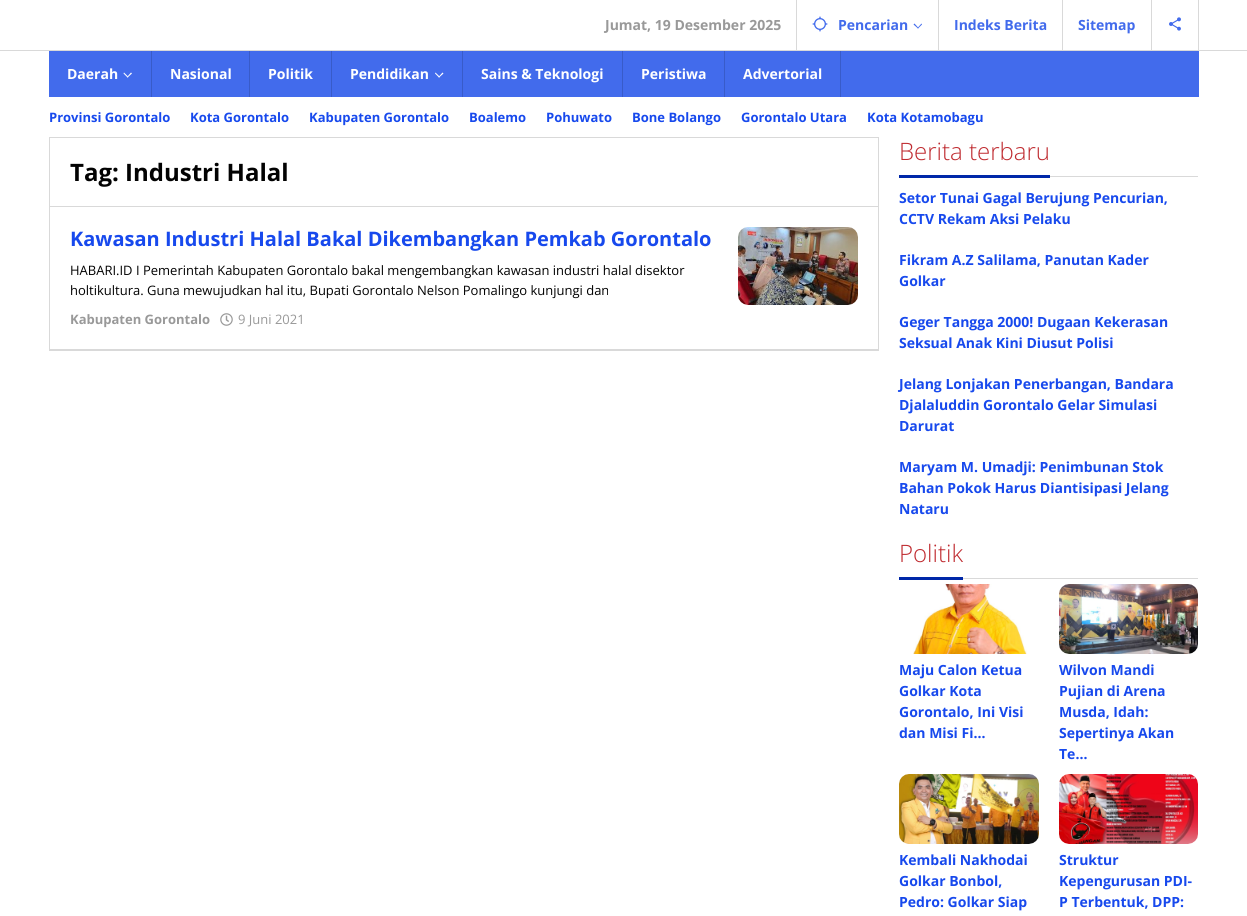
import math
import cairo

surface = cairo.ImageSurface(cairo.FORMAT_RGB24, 1247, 916)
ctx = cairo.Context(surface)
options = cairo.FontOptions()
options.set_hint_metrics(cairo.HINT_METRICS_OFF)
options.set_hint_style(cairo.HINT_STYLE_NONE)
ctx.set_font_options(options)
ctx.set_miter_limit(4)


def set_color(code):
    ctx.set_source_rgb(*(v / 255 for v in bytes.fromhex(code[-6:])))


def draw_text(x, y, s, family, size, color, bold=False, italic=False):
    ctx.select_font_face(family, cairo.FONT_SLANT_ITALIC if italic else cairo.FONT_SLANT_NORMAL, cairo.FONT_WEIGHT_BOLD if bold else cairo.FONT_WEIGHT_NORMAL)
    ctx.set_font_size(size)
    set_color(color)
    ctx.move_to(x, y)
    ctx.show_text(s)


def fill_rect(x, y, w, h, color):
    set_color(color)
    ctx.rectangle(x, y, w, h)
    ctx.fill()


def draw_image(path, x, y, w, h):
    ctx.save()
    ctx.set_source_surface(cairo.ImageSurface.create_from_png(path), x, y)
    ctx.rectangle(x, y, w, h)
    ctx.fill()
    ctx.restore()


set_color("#ffffff")
ctx.paint()
fill_rect(0, 50, 1247, 1, "#d9d9d9")
fill_rect(796, 0, 1, 50, "#d9d9d9")
draw_text(605, 30, "Jumat, 19 Desember 2025", "Open Sans", 14, "#999999", bold=True)
fill_rect(938, 0, 1, 50, "#d9d9d9")
draw_image("assets/img1.png", 812, 16, 16, 16)
draw_text(838, 30, "Pencarian", "Open Sans", 14, "#426bec", bold=True)
ctx.new_path()
ctx.move_to(921.5, 23.5)
ctx.line_to(922, 24.5)
ctx.line_to(918, 28.5)
ctx.line_to(917.5, 28)
ctx.close_path()
ctx.fill()
ctx.new_path()
ctx.move_to(914.5, 23.5)
ctx.line_to(918.5, 28)
ctx.line_to(918, 28.5)
ctx.line_to(913.5, 24.5)
ctx.close_path()
ctx.fill()
fill_rect(1062, 0, 1, 50, "#d9d9d9")
draw_text(954, 30, "Indeks Berita", "Open Sans", 14, "#426bec", bold=True)
fill_rect(1151, 0, 1, 50, "#d9d9d9")
draw_text(1078, 30, "Sitemap", "Open Sans", 14, "#426bec", bold=True)
fill_rect(1198, 0, 1, 50, "#d9d9d9")
draw_image("assets/img2.png", 1169, 17, 12, 14)
fill_rect(49, 51, 1150, 46, "#426bec")
fill_rect(151, 51, 1, 46, "#385bc9")
draw_text(67, 79, "Daerah", "Open Sans", 14, "#ffffff", bold=True)
ctx.new_path()
ctx.move_to(131, 72.5)
ctx.line_to(132, 73.5)
ctx.line_to(127.5, 77.5)
ctx.line_to(127, 77)
ctx.close_path()
ctx.fill()
ctx.new_path()
ctx.move_to(124, 72.5)
ctx.line_to(128.5, 77)
ctx.line_to(127.5, 77.5)
ctx.line_to(123.5, 73.5)
ctx.close_path()
ctx.fill()
fill_rect(249, 51, 1, 46, "#385bc9")
draw_text(170, 79, "Nasional", "Open Sans", 14, "#ffffff", bold=True)
fill_rect(331, 51, 1, 46, "#385bc9")
draw_text(268, 79, "Politik", "Open Sans", 14, "#ffffff", bold=True)
fill_rect(462, 51, 1, 46, "#385bc9")
draw_text(350, 79, "Pendidikan", "Open Sans", 14, "#ffffff", bold=True)
ctx.new_path()
ctx.move_to(442.5, 72.5)
ctx.line_to(443.5, 73.5)
ctx.line_to(439, 77.5)
ctx.line_to(438.5, 77)
ctx.close_path()
ctx.fill()
ctx.new_path()
ctx.move_to(435.5, 72.5)
ctx.line_to(440, 77)
ctx.line_to(439, 77.5)
ctx.line_to(435, 73.5)
ctx.close_path()
ctx.fill()
fill_rect(622, 51, 1, 46, "#385bc9")
draw_text(481, 79, "Sains & Teknologi", "Open Sans", 14, "#ffffff", bold=True)
fill_rect(724, 51, 1, 46, "#385bc9")
draw_text(641, 79, "Peristiwa", "Open Sans", 14, "#ffffff", bold=True)
fill_rect(840, 51, 1, 46, "#385bc9")
draw_text(743, 79, "Advertorial", "Open Sans", 14, "#ffffff", bold=True)
draw_text(49, 122, "Provinsi Gorontalo", "Open Sans", 13, "#1749ed", bold=True)
draw_text(190, 122, "Kota Gorontalo", "Open Sans", 13, "#1749ed", bold=True)
draw_text(309, 122, "Kabupaten Gorontalo", "Open Sans", 13, "#1749ed", bold=True)
draw_text(469, 122, "Boalemo", "Open Sans", 13, "#1749ed", bold=True)
draw_text(546, 122, "Pohuwato", "Open Sans", 13, "#1749ed", bold=True)
draw_text(632, 122, "Bone Bolango", "Open Sans", 13, "#1749ed", bold=True)
draw_text(741, 122, "Gorontalo Utara", "Open Sans", 13, "#1749ed", bold=True)
draw_text(867, 122, "Kota Kotamobagu", "Open Sans", 13, "#1749ed", bold=True)
ctx.rectangle(49.5, 137.5, 829, 69)
set_color("#d9d9d9")
ctx.set_line_width(1)
ctx.stroke()
draw_text(70, 181, "Tag: Industri Halal", "Open Sans", 24, "#020202", bold=True)
ctx.rectangle(49.5, 206.5, 829, 144)
set_color("#d9d9d9")
ctx.stroke()
fill_rect(50, 349, 828, 1, "#d9d9d9")
draw_text(70, 246, "Kawasan Industri Halal Bakal Dikembangkan Pemkab Gorontalo", "Open Sans", 20, "#1749ed", bold=True)
draw_text(70, 275, "HABARI.ID I Pemerintah Kabupaten Gorontalo bakal mengembangkan kawasan industri halal disektor", "Open Sans", 13, "#020202")
draw_text(70, 295, "holtikultura. Guna mewujudkan hal itu, Bupati Gorontalo Nelson Pomalingo kunjungi dan", "Open Sans", 13, "#020202")
draw_text(70, 324, "Kabupaten Gorontalo", "Open Sans", 13, "#999999", bold=True)
draw_image("assets/img3.png", 220, 313, 13, 13)
draw_text(238, 324, "9 Juni 2021", "Open Sans", 13, "#999999")
draw_image("assets/img4.png", 738, 227, 120, 78)
fill_rect(1050, 176, 148, 1, "#d9d9d9")
fill_rect(899, 175, 151, 3, "#0027a8")
draw_text(899, 160, "Berita terbaru", "Open Sans Light", 24, "#bf2b30")
draw_text(899, 203, "Setor Tunai Gagal Berujung Pencurian,", "Open Sans", 14, "#1749ed", bold=True)
draw_text(899, 224, "CCTV Rekam Aksi Pelaku", "Open Sans", 14, "#1749ed", bold=True)
draw_text(899, 265, "Fikram A.Z Salilama, Panutan Kader", "Open Sans", 14, "#1749ed", bold=True)
draw_text(899, 286, "Golkar", "Open Sans", 14, "#1749ed", bold=True)
draw_text(899, 327, "Geger Tangga 2000! Dugaan Kekerasan", "Open Sans", 14, "#1749ed", bold=True)
draw_text(899, 348, "Seksual Anak Kini Diusut Polisi", "Open Sans", 14, "#1749ed", bold=True)
draw_text(899, 389, "Jelang Lonjakan Penerbangan, Bandara", "Open Sans", 14, "#1749ed", bold=True)
draw_text(899, 410, "Djalaluddin Gorontalo Gelar Simulasi", "Open Sans", 14, "#1749ed", bold=True)
draw_text(899, 431, "Darurat", "Open Sans", 14, "#1749ed", bold=True)
draw_text(899, 472, "Maryam M. Umadji: Penimbunan Stok", "Open Sans", 14, "#1749ed", bold=True)
draw_text(899, 493, "Bahan Pokok Harus Diantisipasi Jelang", "Open Sans", 14, "#1749ed", bold=True)
draw_text(899, 514, "Nataru", "Open Sans", 14, "#1749ed", bold=True)
fill_rect(963, 578, 235, 1, "#d9d9d9")
fill_rect(899, 577, 64, 3, "#0027a8")
draw_text(899, 562, "Politik", "Open Sans Light", 24, "#bf2b30")
draw_image("assets/img5.png", 913, 584, 114, 70)
draw_text(899, 675, "Maju Calon Ketua", "Open Sans", 14, "#1749ed", bold=True)
draw_text(899, 696, "Golkar Kota", "Open Sans", 14, "#1749ed", bold=True)
draw_text(899, 717, "Gorontalo, Ini Visi", "Open Sans", 14, "#1749ed", bold=True)
draw_text(899, 738, "dan Misi Fi…", "Open Sans", 14, "#1749ed", bold=True)
draw_image("assets/img6.png", 1059, 584, 139, 70)
draw_text(1059, 675, "Wilvon Mandi", "Open Sans", 14, "#1749ed", bold=True)
draw_text(1059, 696, "Pujian di Arena", "Open Sans", 14, "#1749ed", bold=True)
draw_text(1059, 717, "Musda, Idah:", "Open Sans", 14, "#1749ed", bold=True)
draw_text(1059, 738, "Sepertinya Akan", "Open Sans", 14, "#1749ed", bold=True)
draw_text(1059, 759, "Te…", "Open Sans", 14, "#1749ed", bold=True)
draw_image("assets/img7.png", 899, 774, 140, 70)
draw_text(899, 865, "Kembali Nakhodai", "Open Sans", 14, "#1749ed", bold=True)
draw_text(899, 886, "Golkar Bonbol,", "Open Sans", 14, "#1749ed", bold=True)
draw_text(899, 907, "Pedro: Golkar Siap", "Open Sans", 14, "#1749ed", bold=True)
draw_image("assets/img8.png", 1059, 774, 139, 70)
draw_text(1059, 865, "Struktur", "Open Sans", 14, "#1749ed", bold=True)
draw_text(1059, 886, "Kepengurusan PDI-", "Open Sans", 14, "#1749ed", bold=True)
draw_text(1059, 907, "P Terbentuk, DPP:", "Open Sans", 14, "#1749ed", bold=True)
surface.write_to_png("output.png")
